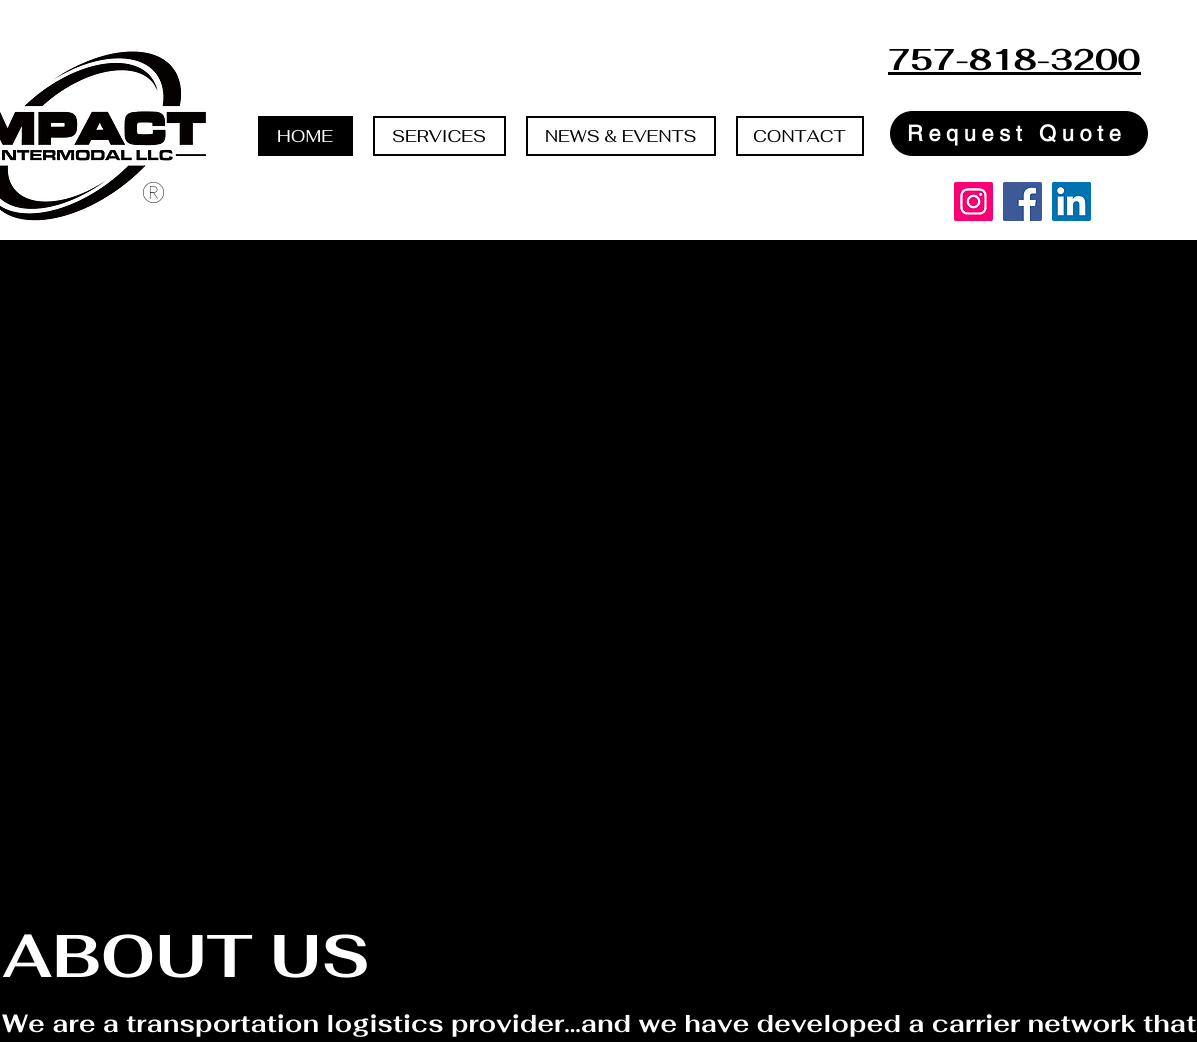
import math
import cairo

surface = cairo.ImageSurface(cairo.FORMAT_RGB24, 1197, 1042)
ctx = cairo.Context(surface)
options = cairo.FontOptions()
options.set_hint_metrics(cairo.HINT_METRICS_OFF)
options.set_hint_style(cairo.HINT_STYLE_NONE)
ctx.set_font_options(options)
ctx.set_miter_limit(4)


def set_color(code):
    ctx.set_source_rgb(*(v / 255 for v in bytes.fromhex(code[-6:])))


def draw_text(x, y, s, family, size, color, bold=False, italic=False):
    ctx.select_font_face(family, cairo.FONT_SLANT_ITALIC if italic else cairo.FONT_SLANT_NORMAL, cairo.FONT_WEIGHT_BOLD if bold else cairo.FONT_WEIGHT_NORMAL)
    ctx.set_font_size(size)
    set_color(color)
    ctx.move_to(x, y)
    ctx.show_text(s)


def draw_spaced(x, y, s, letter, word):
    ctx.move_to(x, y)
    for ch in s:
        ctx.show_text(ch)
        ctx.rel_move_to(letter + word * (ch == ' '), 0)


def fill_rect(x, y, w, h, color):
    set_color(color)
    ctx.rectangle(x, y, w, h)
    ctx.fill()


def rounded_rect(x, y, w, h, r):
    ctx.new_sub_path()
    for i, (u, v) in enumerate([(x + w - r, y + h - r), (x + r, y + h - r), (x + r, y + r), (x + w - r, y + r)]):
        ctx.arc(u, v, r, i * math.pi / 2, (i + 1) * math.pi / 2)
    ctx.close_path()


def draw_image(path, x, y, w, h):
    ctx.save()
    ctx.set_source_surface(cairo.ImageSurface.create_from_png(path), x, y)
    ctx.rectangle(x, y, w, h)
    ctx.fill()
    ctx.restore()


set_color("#ffffff")
ctx.paint()
draw_image("assets/img1.png", 0, 49, 206, 172)
draw_text(888, 70, "757-818-3200", "Fahkwang", 30, "#000000", bold=True)
fill_rect(888, 72, 253, 3, "#000000")
fill_rect(258, 116, 95, 40, "#000000")
draw_text(277, 142, "HOME", "Fahkwang", 17, "#ffffff")
ctx.rectangle(374, 117, 131, 38)
set_color("#000000")
ctx.stroke()
draw_text(392, 142, "SERVICES", "Fahkwang", 17, "#000000")
ctx.rectangle(527, 117, 188, 38)
ctx.stroke()
draw_text(545, 142, "NEWS & EVENTS", "Fahkwang", 17, "#000000")
ctx.rectangle(737, 117, 126, 38)
ctx.stroke()
draw_text(753, 142, "CONTACT", "Fahkwang", 17, "#000000")
rounded_rect(890, 111, 258, 45, 22.5)
ctx.fill()
ctx.select_font_face("helvetica", cairo.FONT_SLANT_NORMAL, cairo.FONT_WEIGHT_BOLD)
ctx.set_font_size(22)
set_color("#ffffff")
draw_spaced(907, 141, "Request Quote", 5.5, 0)
draw_image("assets/img2.png", 143, 182, 21, 21)
draw_image("assets/img3.png", 954, 182, 39, 39)
draw_image("assets/img4.png", 1003, 182, 39, 39)
draw_image("assets/img5.png", 1052, 182, 39, 39)
fill_rect(0, 240, 1197, 802, "#000000")
draw_text(2, 977, "ABOUT US", "Fahkwang", 60, "#ffffff", bold=True)
draw_text(2, 1032, "We are a transportation logistics provider...and we have developed a carrier network that", "Fahkwang", 25, "#ffffff", bold=True)
surface.write_to_png("output.png")
